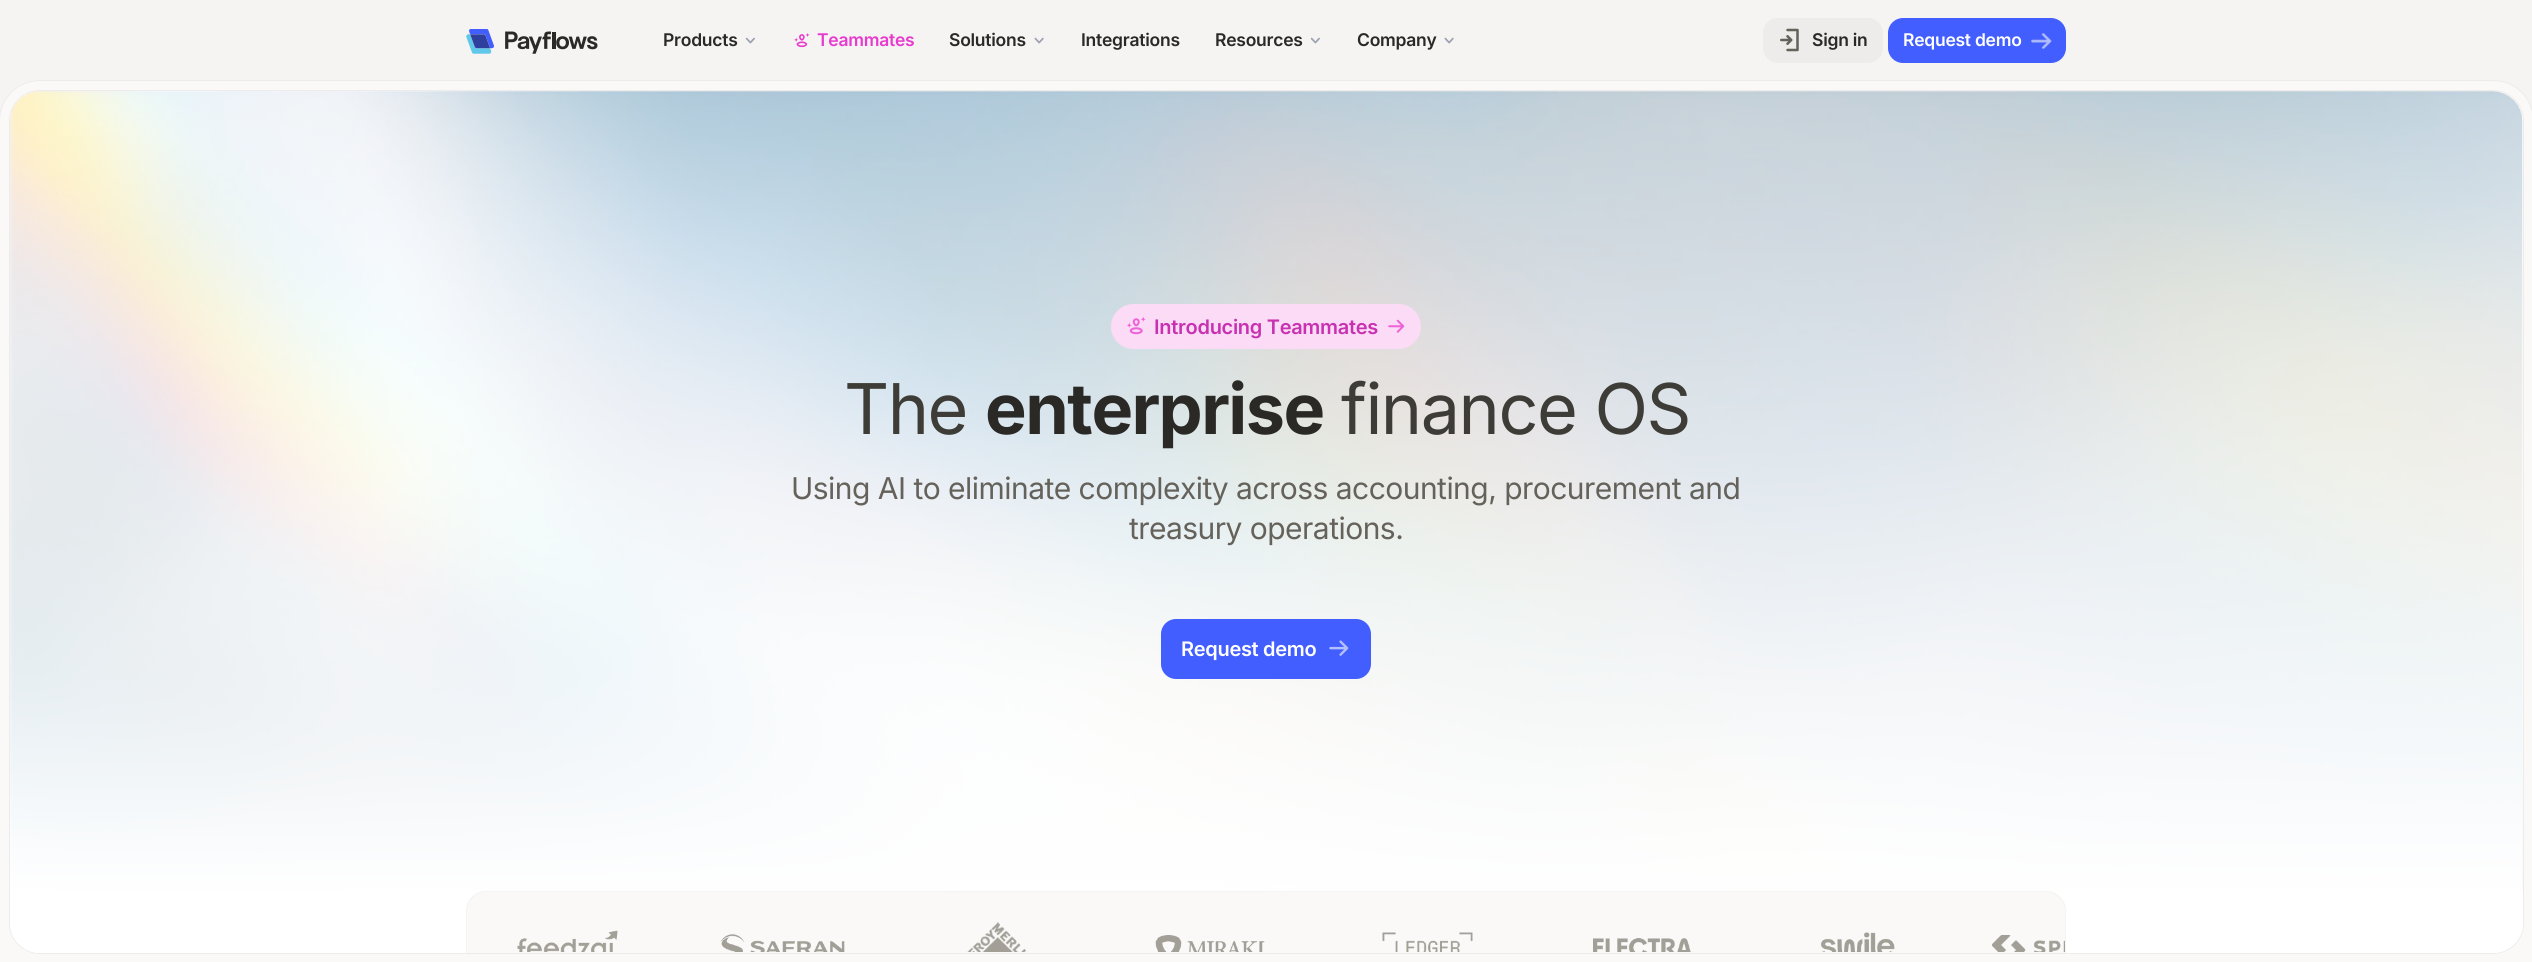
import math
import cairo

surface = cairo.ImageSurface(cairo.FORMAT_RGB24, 2532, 962)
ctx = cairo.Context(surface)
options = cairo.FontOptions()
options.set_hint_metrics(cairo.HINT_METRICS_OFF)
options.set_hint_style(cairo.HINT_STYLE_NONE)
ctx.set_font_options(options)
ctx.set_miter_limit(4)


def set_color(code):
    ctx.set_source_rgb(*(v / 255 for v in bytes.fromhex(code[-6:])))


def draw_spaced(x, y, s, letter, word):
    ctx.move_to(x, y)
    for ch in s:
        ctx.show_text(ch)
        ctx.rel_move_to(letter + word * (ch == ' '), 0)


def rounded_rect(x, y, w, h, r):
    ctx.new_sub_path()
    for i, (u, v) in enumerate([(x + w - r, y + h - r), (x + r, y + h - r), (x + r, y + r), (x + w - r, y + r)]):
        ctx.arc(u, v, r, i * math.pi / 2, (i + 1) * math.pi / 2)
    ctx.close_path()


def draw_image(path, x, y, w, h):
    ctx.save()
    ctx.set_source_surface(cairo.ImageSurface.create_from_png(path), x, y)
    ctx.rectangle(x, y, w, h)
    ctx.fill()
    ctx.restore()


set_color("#f5f4f3")
ctx.paint()
draw_image("assets/img1.png", 466, 29, 132, 25)
ctx.select_font_face("Inter SemiBold")
ctx.set_font_size(17.5)
set_color("#2a2926")
draw_spaced(663, 46, "Products", -0.25, 0)
draw_image("assets/img2.png", 745, 37, 10, 7)
draw_image("assets/img3.png", 794, 33, 16, 15)
set_color("#e83ace")
draw_spaced(817, 46, "Teammates", -0.25, 0)
set_color("#2a2926")
draw_spaced(949, 46, "Solutions", -0.25, 0)
draw_image("assets/img4.png", 1034, 37, 10, 7)
draw_spaced(1081, 46, "Integrations", -0.25, 0)
draw_spaced(1215, 46, "Resources", -0.25, 0)
draw_image("assets/img2.png", 1310, 37, 10, 7)
draw_spaced(1357, 46, "Company", -0.25, 0)
draw_image("assets/img4.png", 1444, 37, 10, 7)
set_color("#edecea")
rounded_rect(1763, 18, 120, 45, 15)
ctx.fill()
draw_image("assets/img5.png", 1780, 28, 19, 24)
set_color("#2a2926")
draw_spaced(1812, 46, "Sign in", -0.25, 0)
set_color("#425eff")
rounded_rect(1888, 18, 178, 45, 15)
ctx.fill()
set_color("#ffffff")
draw_spaced(1903, 46, "Request demo", -0.25, 0)
draw_image("assets/img6.png", 2031, 33, 21, 16)
set_color("#faf9f7")
ctx.new_path()
ctx.move_to(40, 80.5)
ctx.line_to(2493, 80.5)
ctx.curve_to(2515.5, 80.5, 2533.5, 98.5, 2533.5, 121)
ctx.line_to(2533.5, 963.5)
ctx.line_to(-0.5, 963.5)
ctx.line_to(-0.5, 121)
ctx.curve_to(-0.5, 98.5, 17.5, 80.5, 40, 80.5)
ctx.close_path()
ctx.fill_preserve()
set_color("#edecea")
ctx.set_line_width(1)
ctx.stroke()
set_color("#ffffff")
rounded_rect(9.5, 90.5, 2514, 863, 30.5)
ctx.fill_preserve()
set_color("#edecea")
ctx.stroke()
draw_image("assets/img7.png", 10, 91, 2513, 800)
set_color("#fbdbf6")
rounded_rect(1111, 304, 310, 45, 22.5)
ctx.fill()
draw_image("assets/img8.png", 1126, 316, 20, 19)
ctx.set_font_size(20)
set_color("#c832b1")
draw_spaced(1154, 334, "Introducing Teammates", -0.3, 0)
draw_image("assets/img9.png", 1388, 319, 17, 14)
ctx.select_font_face("Inter")
ctx.set_font_size(70)
set_color("#3e3c37")
draw_spaced(844, 434, "The", -1.5, 0)
ctx.select_font_face("Inter", cairo.FONT_SLANT_NORMAL, cairo.FONT_WEIGHT_BOLD)
set_color("#2a2926")
draw_spaced(985, 434, "enterprise", -1.5, 0)
ctx.select_font_face("Inter")
set_color("#3e3c37")
draw_spaced(1341, 434, "finance OS", -1.5, 0)
ctx.set_font_size(30)
set_color("#65625b")
draw_spaced(791, 499, "Using AI to eliminate complexity across accounting, procurement and", -0.53, 0)
draw_spaced(1129, 539, "treasury operations.", -0.53, 0)
set_color("#425eff")
rounded_rect(1161, 619, 210, 60, 15)
ctx.fill()
ctx.select_font_face("Inter SemiBold")
ctx.set_font_size(20)
set_color("#ffffff")
draw_spaced(1181, 656, "Request demo", -0.3, 0)
draw_image("assets/img10.png", 1329, 640, 20, 16)
ctx.new_path()
ctx.move_to(10, 891)
ctx.line_to(2523, 891)
ctx.line_to(2523, 923)
ctx.curve_to(2523, 939.5, 2509.5, 953, 2493, 953)
ctx.line_to(40, 953)
ctx.curve_to(23.5, 953, 10, 939.5, 10, 923)
ctx.close_path()
ctx.fill()
set_color("#faf9f7")
ctx.new_path()
ctx.move_to(486, 891)
ctx.line_to(2046, 891)
ctx.curve_to(2057, 891, 2066, 900, 2066, 911)
ctx.line_to(2066, 953)
ctx.line_to(466, 953)
ctx.line_to(466, 911)
ctx.curve_to(466, 900, 475, 891, 486, 891)
ctx.close_path()
ctx.fill()
set_color("#f5f4f3")
ctx.new_path()
ctx.move_to(486, 891)
ctx.curve_to(475, 891, 466, 900, 466, 911)
ctx.line_to(466, 953)
ctx.line_to(467, 953)
ctx.line_to(467, 911)
ctx.curve_to(467, 901, 476, 892, 486, 892)
ctx.line_to(2046, 892)
ctx.curve_to(2056, 892, 2065, 901, 2065, 911)
ctx.line_to(2065, 953)
ctx.line_to(2066, 953)
ctx.line_to(2066, 911)
ctx.curve_to(2066, 900, 2057, 891, 2046, 891)
ctx.close_path()
ctx.fill()
draw_image("assets/img11.png", 517, 930, 101, 22)
draw_image("assets/img12.png", 720, 934, 125, 18)
draw_image("assets/img13.png", 967, 922, 61, 30)
draw_image("assets/img14.png", 1155, 935, 110, 17)
draw_image("assets/img15.png", 1382, 932, 91, 20)
draw_image("assets/img16.png", 1593, 938, 98, 14)
draw_image("assets/img17.png", 1820, 932, 75, 20)
draw_image("assets/img18.png", 1992, 935, 73, 17)
surface.write_to_png("output.png")
